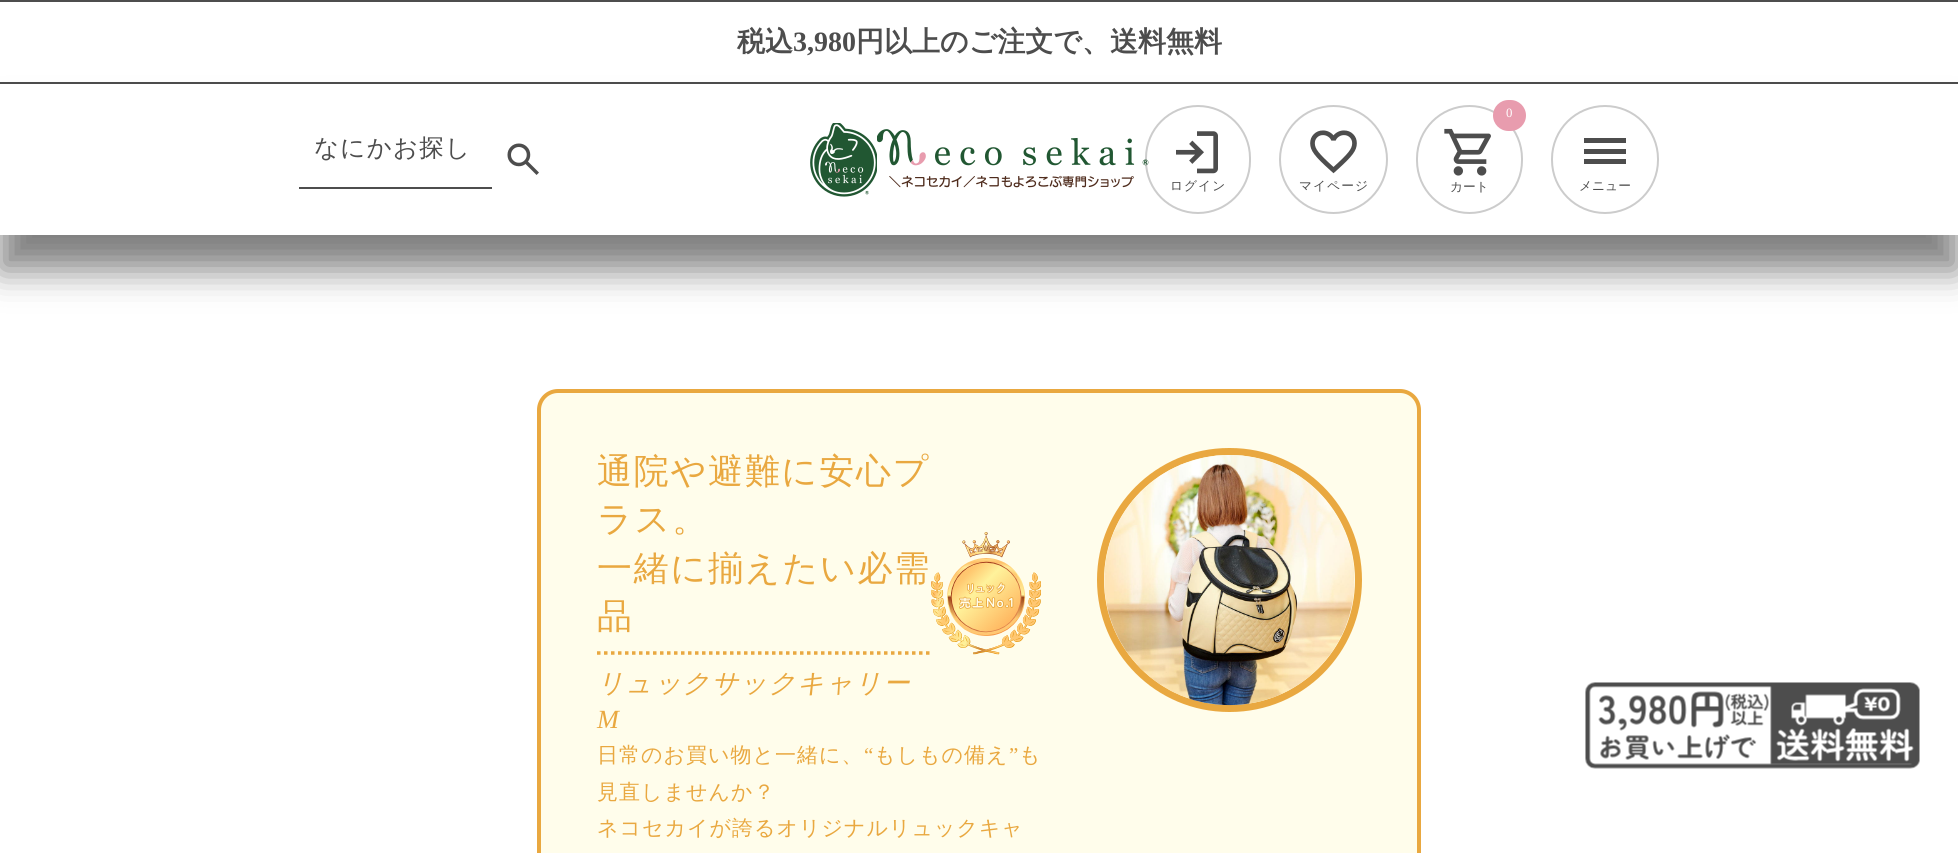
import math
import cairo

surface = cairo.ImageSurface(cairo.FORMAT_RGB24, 1958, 853)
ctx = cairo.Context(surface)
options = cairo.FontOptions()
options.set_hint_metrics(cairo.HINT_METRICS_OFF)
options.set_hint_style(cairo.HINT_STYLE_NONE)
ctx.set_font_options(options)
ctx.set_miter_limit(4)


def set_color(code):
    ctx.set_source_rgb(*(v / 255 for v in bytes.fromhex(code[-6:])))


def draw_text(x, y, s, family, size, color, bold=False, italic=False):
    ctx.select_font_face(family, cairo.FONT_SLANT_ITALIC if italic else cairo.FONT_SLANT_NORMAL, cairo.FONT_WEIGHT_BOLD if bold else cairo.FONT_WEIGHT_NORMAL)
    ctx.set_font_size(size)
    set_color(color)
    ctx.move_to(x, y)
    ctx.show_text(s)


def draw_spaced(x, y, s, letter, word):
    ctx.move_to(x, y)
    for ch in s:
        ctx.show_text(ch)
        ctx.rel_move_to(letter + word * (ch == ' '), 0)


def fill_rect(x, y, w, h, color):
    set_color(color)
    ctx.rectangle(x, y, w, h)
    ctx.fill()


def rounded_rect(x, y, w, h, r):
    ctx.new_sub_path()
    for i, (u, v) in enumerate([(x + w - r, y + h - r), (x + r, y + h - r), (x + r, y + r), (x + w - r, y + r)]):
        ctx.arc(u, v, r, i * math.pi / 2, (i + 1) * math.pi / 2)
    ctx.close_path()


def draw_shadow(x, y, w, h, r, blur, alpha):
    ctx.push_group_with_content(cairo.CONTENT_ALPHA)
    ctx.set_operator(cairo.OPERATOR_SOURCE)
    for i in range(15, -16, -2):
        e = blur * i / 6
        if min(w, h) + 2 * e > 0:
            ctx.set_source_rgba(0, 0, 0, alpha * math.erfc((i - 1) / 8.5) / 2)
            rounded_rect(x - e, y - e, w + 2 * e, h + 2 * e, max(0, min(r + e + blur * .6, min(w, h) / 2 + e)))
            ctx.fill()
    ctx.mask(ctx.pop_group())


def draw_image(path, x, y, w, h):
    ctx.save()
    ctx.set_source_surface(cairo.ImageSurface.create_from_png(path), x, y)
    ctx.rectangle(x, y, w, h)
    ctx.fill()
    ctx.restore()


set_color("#ffffff")
ctx.paint()
fill_rect(0, 0, 1958, 2, "#4d4d4d")
fill_rect(0, 82, 1958, 2, "#4d4d4d")
draw_text(737, 51, "税込", "WenQuanYi Zen Hei", 28, "#4d4d4d", bold=True)
draw_text(793, 51, "3,980", "Liberation Serif", 28, "#4d4d4d", bold=True)
draw_text(856, 51, "円以上のご注文で、送料無料", "WenQuanYi Zen Hei", 28, "#4d4d4d", bold=True)
set_color("#000000")
draw_shadow(0, 119, 1958, 151, 0, 17.5, 0.5)
fill_rect(0, 84, 1958, 151, "#ffffff")
fill_rect(299, 187, 193, 2, "#4d4d4d")
ctx.select_font_face("WenQuanYi Zen Hei Medium")
ctx.set_font_size(24.5)
draw_spaced(314, 156, "なにかお探し", 1.25, 0)
draw_image("assets/img1.png", 507, 143, 32, 32)
draw_image("assets/img2.png", 810, 123, 67, 74)
rounded_rect(1146, 106, 104, 107, 52)
set_color("#cccccc")
ctx.stroke()
draw_image("assets/img3.png", 877, 129, 272, 59)
draw_image("assets/img4.png", 1176, 131, 42, 43)
ctx.set_font_size(12.75)
set_color("#4d4d4d")
draw_spaced(1170, 190, "ログイン", 1, 0)
ctx.new_path()
ctx.arc(1333.5, 159.5, 53.5, 0, 2 * math.pi)
set_color("#cccccc")
ctx.stroke()
draw_image("assets/img5.png", 1310, 130, 47, 44)
set_color("#4d4d4d")
draw_spaced(1299, 190, "マイページ", 1, 0)
rounded_rect(1417, 106, 105, 107, 52.5)
set_color("#cccccc")
ctx.stroke()
set_color("#e89cae")
rounded_rect(1493, 100, 33, 31, 15.5)
ctx.fill()
draw_text(1506, 117, "0", "Liberation Serif", 12.75, "#ffffff")
draw_image("assets/img6.png", 1444, 128, 47, 48)
draw_text(1450, 191, "カート", "WenQuanYi Zen Hei Medium", 12.75, "#4d4d4d")
rounded_rect(1552, 106, 106, 107, 53)
set_color("#cccccc")
ctx.stroke()
fill_rect(1584, 149, 42, 5, "#4d4d4d")
fill_rect(1584, 138, 42, 5, "#4d4d4d")
fill_rect(1584, 159, 42, 5, "#4d4d4d")
draw_text(1579, 190, "メニュー", "WenQuanYi Zen Hei Medium", 12.75, "#4d4d4d")
set_color("#fffdeb")
rounded_rect(539, 391, 880, 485, 19)
ctx.fill_preserve()
set_color("#e9a840")
ctx.set_line_width(4)
ctx.stroke()
ctx.set_font_size(35)
draw_spaced(597, 483, "通院や避難に安心プ", 1.75, 0)
draw_spaced(597, 531, "ラス。", 1.75, 0)
draw_spaced(597, 580, "一緒に揃えたい必需", 1.75, 0)
draw_spaced(597, 628, "品", 1.75, 0)
ctx.new_path()
ctx.move_to(597, 653)
ctx.line_to(931, 653)
ctx.set_line_width(3.5)
ctx.set_dash([3.5, 3.5])
ctx.stroke()
ctx.select_font_face("WenQuanYi Zen Hei Medium", cairo.FONT_SLANT_ITALIC)
ctx.set_font_size(26.25)
draw_spaced(597, 692, "リュックサックキャリー", 1.75, 0)
ctx.select_font_face("Liberation Serif", cairo.FONT_SLANT_ITALIC)
draw_spaced(597, 728, "M", 1.75, 0)
draw_image("assets/img7.png", 931, 532, 110, 123)
ctx.select_font_face("WenQuanYi Zen Hei Medium")
ctx.set_font_size(21)
draw_spaced(597, 762, "日常のお買い物と一緒に、", 1, 0)
ctx.select_font_face("Liberation Serif")
draw_spaced(864, 762, "“", 1, 0)
ctx.select_font_face("WenQuanYi Zen Hei Medium")
draw_spaced(874, 762, "もしもの備え", 1, 0)
ctx.select_font_face("Liberation Serif")
draw_spaced(1009, 762, "”", 1, 0)
ctx.select_font_face("WenQuanYi Zen Hei Medium")
draw_spaced(1019, 762, "も", 1, 0)
draw_spaced(597, 799, "見直しませんか？", 1, 0)
draw_spaced(597, 835, "ネコセカイが誇るオリジナルリュックキャ", 1, 0)
rounded_rect(1100.5, 451.5, 258, 257, 128.5)
ctx.set_line_width(7)
ctx.set_dash([])
ctx.stroke()
draw_image("assets/img8.png", 1104, 455, 251, 251)
draw_image("assets/img9.png", 1585, 682, 335, 87)
surface.write_to_png("output.png")
